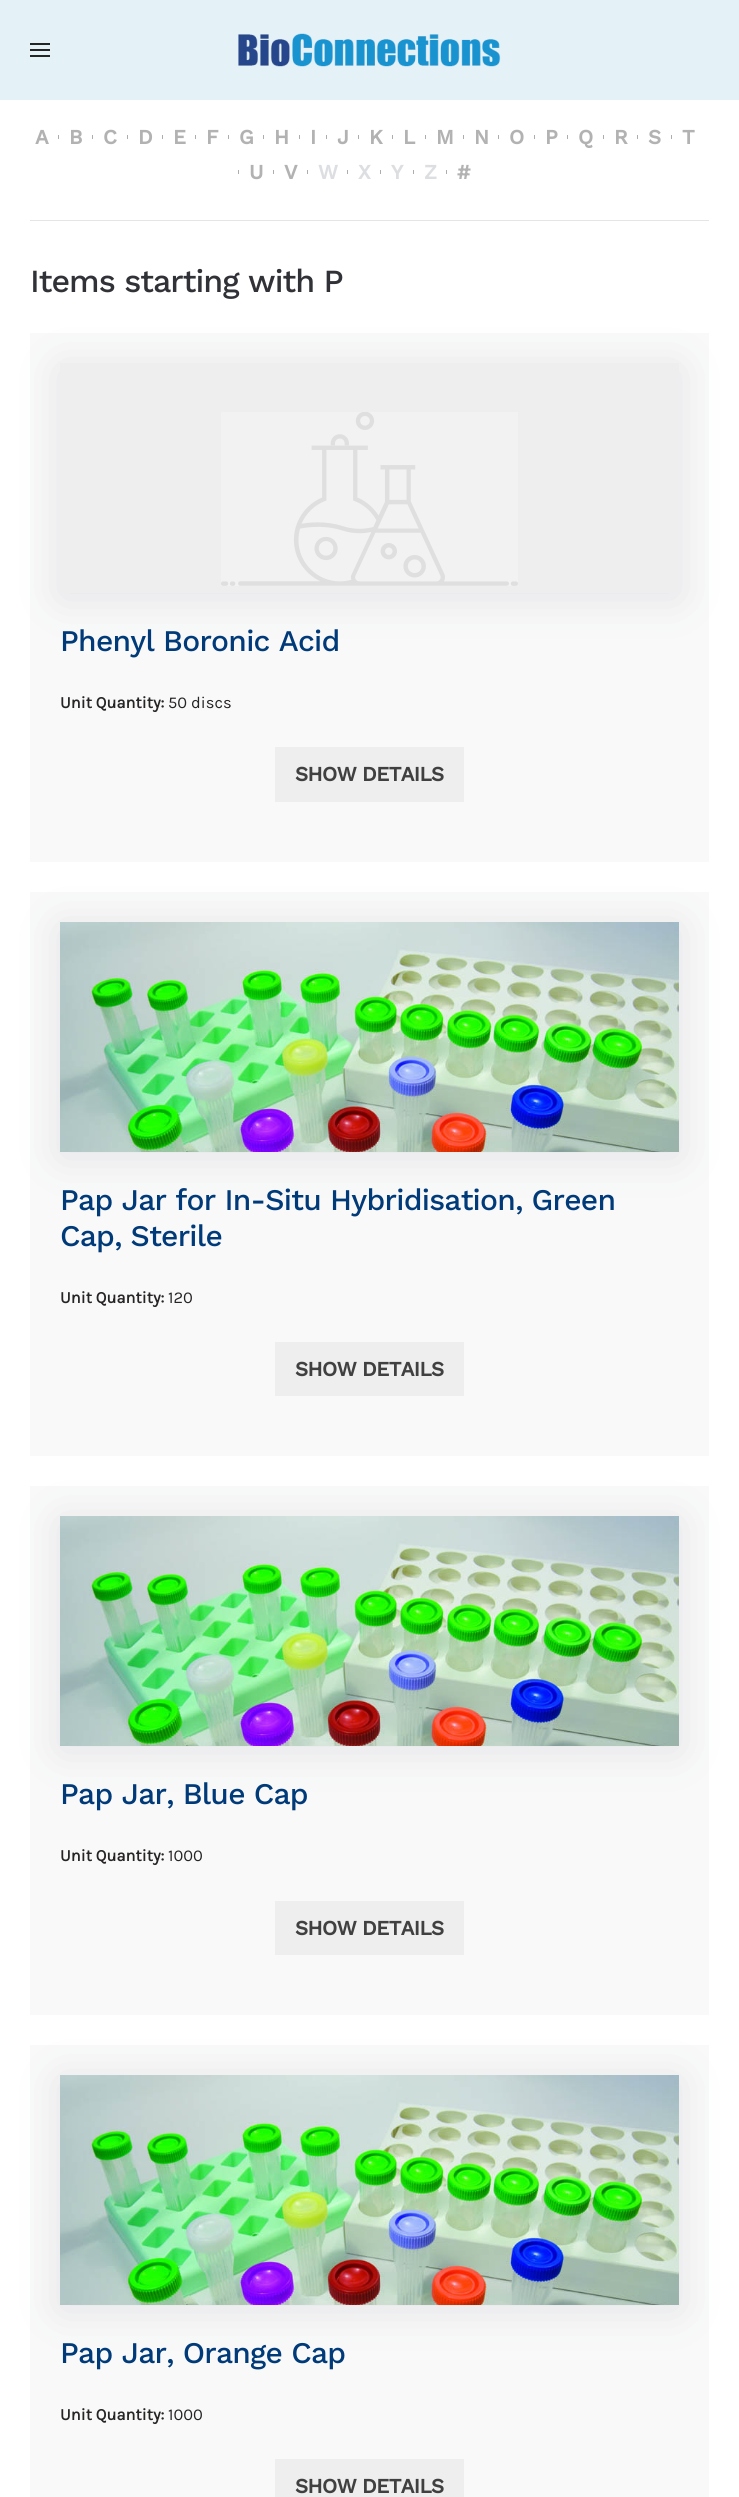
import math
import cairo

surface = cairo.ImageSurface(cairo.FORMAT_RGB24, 739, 2497)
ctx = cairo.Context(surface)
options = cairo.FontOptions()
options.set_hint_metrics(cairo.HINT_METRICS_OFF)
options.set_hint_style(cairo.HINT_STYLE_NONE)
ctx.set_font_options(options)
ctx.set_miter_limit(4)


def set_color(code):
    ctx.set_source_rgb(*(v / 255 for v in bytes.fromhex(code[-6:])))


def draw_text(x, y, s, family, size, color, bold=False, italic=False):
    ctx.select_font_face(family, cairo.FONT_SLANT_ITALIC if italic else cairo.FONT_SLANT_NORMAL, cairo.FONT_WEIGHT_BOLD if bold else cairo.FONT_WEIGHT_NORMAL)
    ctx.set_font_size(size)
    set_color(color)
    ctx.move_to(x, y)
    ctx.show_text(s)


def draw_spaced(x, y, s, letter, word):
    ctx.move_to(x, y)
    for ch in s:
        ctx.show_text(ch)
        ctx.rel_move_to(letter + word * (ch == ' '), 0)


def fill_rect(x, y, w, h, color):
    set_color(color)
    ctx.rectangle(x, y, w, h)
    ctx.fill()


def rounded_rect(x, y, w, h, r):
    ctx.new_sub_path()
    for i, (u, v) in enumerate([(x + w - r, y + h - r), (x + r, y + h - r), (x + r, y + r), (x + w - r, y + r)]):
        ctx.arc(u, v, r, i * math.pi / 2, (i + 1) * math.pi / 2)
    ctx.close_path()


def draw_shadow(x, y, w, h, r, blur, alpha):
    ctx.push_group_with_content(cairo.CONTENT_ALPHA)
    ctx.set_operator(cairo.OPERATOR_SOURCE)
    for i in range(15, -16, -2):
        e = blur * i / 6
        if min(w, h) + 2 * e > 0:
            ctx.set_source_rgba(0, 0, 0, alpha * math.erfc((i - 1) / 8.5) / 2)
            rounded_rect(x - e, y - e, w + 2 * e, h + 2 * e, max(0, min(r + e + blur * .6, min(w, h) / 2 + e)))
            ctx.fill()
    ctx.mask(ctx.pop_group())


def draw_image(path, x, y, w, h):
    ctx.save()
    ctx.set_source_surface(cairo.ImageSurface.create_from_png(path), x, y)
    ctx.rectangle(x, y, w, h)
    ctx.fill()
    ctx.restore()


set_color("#ffffff")
ctx.paint()
fill_rect(0, 0, 739, 100, "#e4f1f7")
fill_rect(30, 43, 20, 2, "#272424")
fill_rect(30, 49, 20, 2, "#272424")
fill_rect(30, 55, 20, 2, "#272424")
draw_image("assets/img1.png", 238, 33, 263, 34)
ctx.select_font_face("Work Sans", cairo.FONT_SLANT_NORMAL, cairo.FONT_WEIGHT_BOLD)
ctx.set_font_size(20.5)
set_color("#b2b2b2")
draw_spaced(35, 144, "A", -0.6, 0)
fill_rect(58, 135, 1, 4, "#adadad")
set_color("#b2b2b2")
draw_spaced(69, 144, "B", -0.6, 0)
fill_rect(92, 135, 1, 4, "#adadad")
set_color("#b2b2b2")
draw_spaced(103, 144, "C", -0.6, 0)
fill_rect(127, 135, 1, 4, "#adadad")
set_color("#b2b2b2")
draw_spaced(138, 144, "D", -0.6, 0)
fill_rect(162, 135, 1, 4, "#adadad")
set_color("#b2b2b2")
draw_spaced(173, 144, "E", -0.6, 0)
fill_rect(195, 135, 1, 4, "#adadad")
set_color("#b2b2b2")
draw_spaced(206, 144, "F", -0.6, 0)
fill_rect(228, 135, 1, 4, "#adadad")
set_color("#b2b2b2")
draw_spaced(239, 144, "G", -0.6, 0)
fill_rect(263, 135, 1, 4, "#adadad")
set_color("#b2b2b2")
draw_spaced(274, 144, "H", -0.6, 0)
fill_rect(299, 135, 1, 4, "#adadad")
set_color("#b2b2b2")
draw_spaced(310, 144, "I", -0.6, 0)
fill_rect(326, 135, 1, 4, "#adadad")
set_color("#b2b2b2")
draw_spaced(337, 144, "J", -0.6, 0)
fill_rect(358, 135, 1, 4, "#adadad")
set_color("#b2b2b2")
draw_spaced(369, 144, "K", -0.6, 0)
fill_rect(392, 135, 1, 4, "#adadad")
set_color("#b2b2b2")
draw_spaced(403, 144, "L", -0.6, 0)
fill_rect(425, 135, 1, 4, "#adadad")
set_color("#b2b2b2")
draw_spaced(436, 144, "M", -0.6, 0)
fill_rect(463, 135, 1, 4, "#adadad")
set_color("#b2b2b2")
draw_spaced(474, 144, "N", -0.6, 0)
fill_rect(498, 135, 1, 4, "#adadad")
set_color("#b2b2b2")
draw_spaced(509, 144, "O", -0.6, 0)
fill_rect(534, 135, 1, 4, "#adadad")
set_color("#b2b2b2")
draw_spaced(545, 144, "P", -0.6, 0)
fill_rect(567, 135, 1, 4, "#adadad")
set_color("#b2b2b2")
draw_spaced(578, 144, "Q", -0.6, 0)
fill_rect(603, 135, 1, 4, "#adadad")
set_color("#b2b2b2")
draw_spaced(614, 144, "R", -0.6, 0)
fill_rect(637, 135, 1, 4, "#adadad")
set_color("#b2b2b2")
draw_spaced(648, 144, "S", -0.6, 0)
fill_rect(671, 135, 1, 4, "#adadad")
set_color("#b2b2b2")
draw_spaced(682, 144, "T", -0.6, 0)
fill_rect(238, 170, 1, 4, "#adadad")
set_color("#b2b2b2")
draw_spaced(249, 179, "U", -0.6, 0)
fill_rect(273, 170, 1, 4, "#adadad")
set_color("#b2b2b2")
draw_spaced(284, 179, "V", -0.6, 0)
fill_rect(307, 170, 1, 4, "#adadad")
set_color("#dddee1")
draw_spaced(318, 179, "W", -0.6, 0)
fill_rect(347, 170, 1, 4, "#adadad")
set_color("#dddee1")
draw_spaced(358, 179, "X", -0.6, 0)
fill_rect(380, 170, 1, 4, "#adadad")
set_color("#dddee1")
draw_spaced(391, 179, "Y", -0.6, 0)
fill_rect(413, 170, 1, 4, "#adadad")
set_color("#dddee1")
draw_spaced(424, 179, "Z", -0.6, 0)
fill_rect(446, 170, 1, 4, "#adadad")
set_color("#b2b2b2")
draw_spaced(457, 179, "#", -0.6, 0)
fill_rect(30, 220, 679, 1, "#e5e5e5")
ctx.select_font_face("Work Sans Medium")
ctx.set_font_size(32.25)
set_color("#313237")
draw_spaced(30, 292, "Items starting with P", -1, 0)
fill_rect(30, 333, 679, 529, "#f9f9f9")
set_color("#3f4961")
draw_shadow(60, 368, 619, 230, 0, 22.5, 0.12)
fill_rect(60, 363, 619, 230, "#eeeeee")
draw_image("assets/img2.png", 221, 412, 297, 174)
ctx.set_font_size(30)
set_color("#003a79")
draw_spaced(60, 651, "Phenyl Boronic Acid", -0.75, 0)
draw_text(60, 708, "Unit Quantity:", "Karla", 16.5, "#272424", bold=True)
draw_text(168, 708, "50 discs", "Karla", 16.5, "#272424")
fill_rect(275, 747, 189, 55, "#eeeeee")
ctx.select_font_face("Work Sans", cairo.FONT_SLANT_NORMAL, cairo.FONT_WEIGHT_BOLD)
ctx.set_font_size(20.5)
set_color("#404040")
draw_spaced(295, 781, "SHOW DETAILS", -0.6, 0)
fill_rect(30, 892, 679, 564, "#f9f9f9")
set_color("#3f4961")
draw_shadow(60, 927, 619, 230, 0, 22.5, 0.12)
draw_image("assets/img3.png", 60, 922, 619, 230)
ctx.select_font_face("Work Sans Medium")
ctx.set_font_size(30)
set_color("#003a79")
draw_spaced(60, 1210, "Pap Jar for In-Situ Hybridisation, Green", -0.75, 0)
draw_spaced(60, 1246, "Cap, Sterile", -0.75, 0)
draw_text(60, 1303, "Unit Quantity:", "Karla", 16.5, "#272424", bold=True)
draw_text(168, 1303, "120", "Karla", 16.5, "#272424")
fill_rect(275, 1342, 189, 54, "#eeeeee")
ctx.select_font_face("Work Sans", cairo.FONT_SLANT_NORMAL, cairo.FONT_WEIGHT_BOLD)
ctx.set_font_size(20.5)
set_color("#404040")
draw_spaced(295, 1376, "SHOW DETAILS", -0.6, 0)
fill_rect(30, 1486, 679, 529, "#f9f9f9")
set_color("#3f4961")
draw_shadow(60, 1521, 619, 230, 0, 22.5, 0.12)
draw_image("assets/img3.png", 60, 1516, 619, 230)
ctx.select_font_face("Work Sans Medium")
ctx.set_font_size(30)
set_color("#003a79")
draw_spaced(60, 1804, "Pap Jar, Blue Cap", -0.75, 0)
draw_text(60, 1861, "Unit Quantity:", "Karla", 16.5, "#272424", bold=True)
draw_text(168, 1861, "1000", "Karla", 16.5, "#272424")
fill_rect(275, 1901, 189, 54, "#eeeeee")
ctx.select_font_face("Work Sans", cairo.FONT_SLANT_NORMAL, cairo.FONT_WEIGHT_BOLD)
ctx.set_font_size(20.5)
set_color("#404040")
draw_spaced(295, 1935, "SHOW DETAILS", -0.6, 0)
fill_rect(30, 2045, 679, 452, "#f9f9f9")
set_color("#3f4961")
draw_shadow(60, 2080, 619, 230, 0, 22.5, 0.12)
draw_image("assets/img3.png", 60, 2075, 619, 230)
ctx.select_font_face("Work Sans Medium")
ctx.set_font_size(30)
set_color("#003a79")
draw_spaced(60, 2363, "Pap Jar, Orange Cap", -0.75, 0)
draw_text(60, 2420, "Unit Quantity:", "Karla", 16.5, "#272424", bold=True)
draw_text(168, 2420, "1000", "Karla", 16.5, "#272424")
fill_rect(275, 2459, 189, 38, "#eeeeee")
ctx.select_font_face("Work Sans", cairo.FONT_SLANT_NORMAL, cairo.FONT_WEIGHT_BOLD)
ctx.set_font_size(20.5)
set_color("#404040")
draw_spaced(295, 2493, "SHOW DETAILS", -0.6, 0)
surface.write_to_png("output.png")
